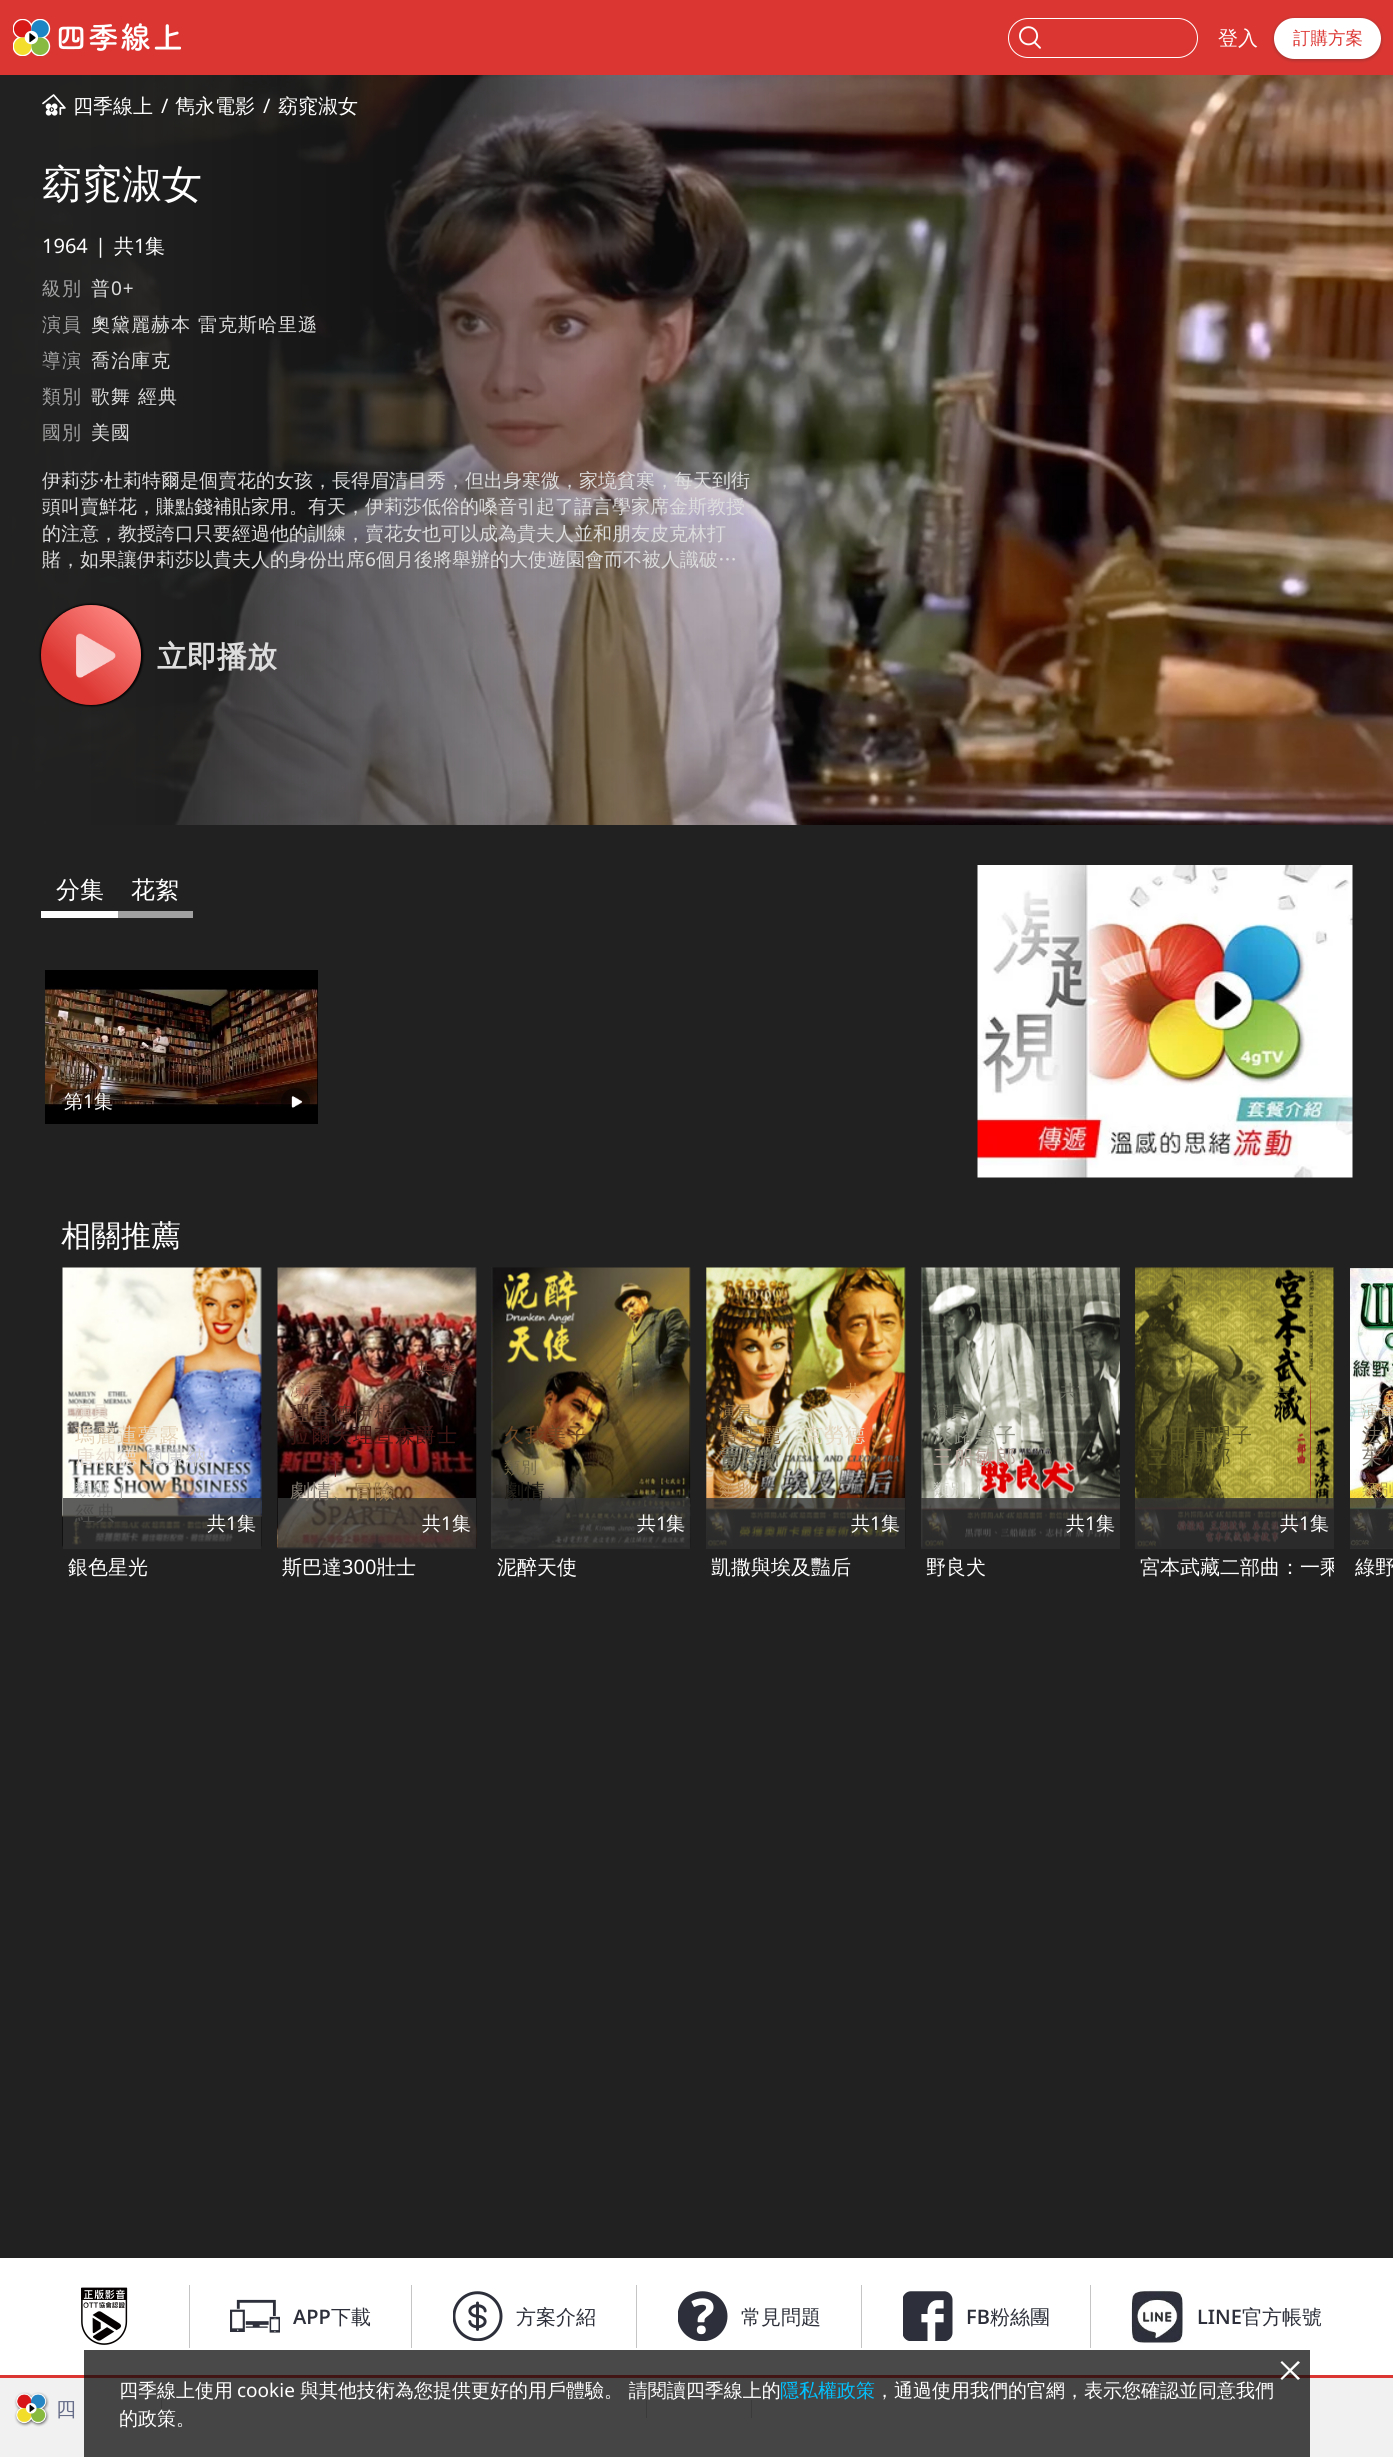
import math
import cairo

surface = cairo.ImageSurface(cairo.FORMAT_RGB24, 1393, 2457)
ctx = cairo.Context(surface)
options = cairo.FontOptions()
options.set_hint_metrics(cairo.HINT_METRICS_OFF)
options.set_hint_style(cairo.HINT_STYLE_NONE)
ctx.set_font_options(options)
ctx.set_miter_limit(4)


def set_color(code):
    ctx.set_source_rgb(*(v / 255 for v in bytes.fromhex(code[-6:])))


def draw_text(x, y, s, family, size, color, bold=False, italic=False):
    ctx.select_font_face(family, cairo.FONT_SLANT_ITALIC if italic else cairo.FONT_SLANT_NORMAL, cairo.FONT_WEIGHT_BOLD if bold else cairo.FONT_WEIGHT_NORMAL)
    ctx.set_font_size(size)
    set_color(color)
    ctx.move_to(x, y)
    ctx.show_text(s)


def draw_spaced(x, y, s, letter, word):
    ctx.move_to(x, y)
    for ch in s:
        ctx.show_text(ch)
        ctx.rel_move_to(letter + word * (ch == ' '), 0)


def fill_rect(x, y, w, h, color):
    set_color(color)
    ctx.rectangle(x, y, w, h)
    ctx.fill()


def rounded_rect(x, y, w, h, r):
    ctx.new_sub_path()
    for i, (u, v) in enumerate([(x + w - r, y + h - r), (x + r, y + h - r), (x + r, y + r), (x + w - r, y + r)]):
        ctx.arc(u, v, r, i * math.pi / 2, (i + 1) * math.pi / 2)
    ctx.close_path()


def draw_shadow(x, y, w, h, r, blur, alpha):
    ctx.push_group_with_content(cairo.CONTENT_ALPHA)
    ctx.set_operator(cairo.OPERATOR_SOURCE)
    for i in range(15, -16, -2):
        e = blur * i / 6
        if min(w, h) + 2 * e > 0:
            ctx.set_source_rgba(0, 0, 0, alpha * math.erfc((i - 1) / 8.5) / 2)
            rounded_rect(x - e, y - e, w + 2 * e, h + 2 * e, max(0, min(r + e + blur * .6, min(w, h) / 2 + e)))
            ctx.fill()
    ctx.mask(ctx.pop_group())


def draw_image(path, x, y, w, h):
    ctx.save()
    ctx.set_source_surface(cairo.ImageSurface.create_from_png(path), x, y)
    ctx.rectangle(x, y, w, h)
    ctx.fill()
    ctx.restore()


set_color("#f1f1f1")
ctx.paint()
fill_rect(0, 0, 1393, 75, "#dc3632")
draw_image("assets/img1.png", 13, 19, 168, 37)
rounded_rect(1008.5, 18.5, 189, 39, 19.5)
set_color("#ffffff")
ctx.set_line_width(1)
ctx.stroke()
draw_image("assets/img2.png", 1019, 26, 22, 23)
draw_text(1218, 45, "登入", "WenQuanYi Zen Hei Medium", 20, "#ffffff")
set_color("#322f2f")
draw_shadow(1274, 19, 107, 41, 20.5, 2, 0.42)
set_color("#ffffff")
rounded_rect(1274, 18, 107, 41, 20.5)
ctx.fill()
draw_text(1293, 44, "訂購方案", "WenQuanYi Zen Hei Medium", 17.5, "#dc3632")
fill_rect(0, 825, 1393, 1433, "#212121")
draw_image("assets/img3.png", 0, 75, 1393, 750)
draw_image("assets/img4.png", 42, 94, 24, 22)
draw_text(73, 113, "四季線上", "WenQuanYi Zen Hei Medium", 20, "#ffffff")
draw_text(161, 113, "/", "Noto Sans", 20, "#ffffff")
draw_text(175, 113, "雋永電影", "WenQuanYi Zen Hei Medium", 20, "#ffffff")
draw_text(263, 113, "/", "Noto Sans", 20, "#ffffff")
draw_text(278, 113, "窈窕淑女", "WenQuanYi Zen Hei Medium", 20, "#ffffff")
draw_text(42, 198, "窈窕淑女", "WenQuanYi Zen Hei Medium", 40, "#ffffff")
draw_text(42, 253, "1964", "Noto Sans", 20, "#ffffff")
draw_text(95, 253, "|", "Noto Sans", 20, "#ffffff")
draw_text(114, 253, "共", "WenQuanYi Zen Hei Medium", 20, "#ffffff")
draw_text(134, 253, "1", "Noto Sans", 20, "#ffffff")
draw_text(145, 253, "集", "WenQuanYi Zen Hei Medium", 20, "#ffffff")
ctx.set_font_size(19)
set_color("#a1a1a1")
draw_spaced(42, 295, "級別", 1, 0)
set_color("#dddddd")
draw_spaced(91, 295, "普", 1, 0)
ctx.select_font_face("Noto Sans")
draw_spaced(111, 295, "0+", 1, 0)
ctx.select_font_face("WenQuanYi Zen Hei Medium")
set_color("#a1a1a1")
draw_spaced(42, 331, "演員", 1, 0)
set_color("#dddddd")
draw_spaced(91, 331, "奧黛麗赫本", 1, 0)
draw_spaced(198, 331, "雷克斯哈里遜", 1, 0)
set_color("#a1a1a1")
draw_spaced(42, 367, "導演", 1, 0)
set_color("#dddddd")
draw_spaced(91, 367, "喬治庫克", 1, 0)
set_color("#a1a1a1")
draw_spaced(42, 403, "類別", 1, 0)
set_color("#dddddd")
draw_spaced(91, 403, "歌舞", 1, 0)
draw_spaced(138, 403, "經典", 1, 0)
set_color("#a1a1a1")
draw_spaced(42, 439, "國別", 1, 0)
set_color("#dddddd")
draw_spaced(91, 439, "美國", 1, 0)
draw_text(42, 487, "伊莉莎", "WenQuanYi Zen Hei Medium", 19, "#dddddd")
draw_text(99, 487, "·", "Noto Sans", 19, "#dddddd")
draw_text(104, 487, "杜莉特爾是個賣花的女孩，長得眉清目秀，但出身寒微，家境貧寒，每天到街", "WenQuanYi Zen Hei Medium", 19, "#dddddd")
draw_text(42, 513, "頭叫賣鮮花，賺點錢補貼家用。有天，伊莉莎低俗的嗓音引起了語言學家席金斯教授", "WenQuanYi Zen Hei Medium", 19, "#dddddd")
draw_text(42, 540, "的注意，教授誇口只要經過他的訓練，賣花女也可以成為貴夫人並和朋友皮克林打", "WenQuanYi Zen Hei Medium", 19, "#dddddd")
draw_text(42, 566, "賭，如果讓伊莉莎以貴夫人的身份出席", "WenQuanYi Zen Hei Medium", 19, "#dddddd")
draw_text(365, 566, "6", "Noto Sans", 19, "#dddddd")
draw_text(376, 566, "個月後將舉辦的大使遊園會而不被人識破…", "WenQuanYi Zen Hei Medium", 19, "#dddddd")
set_color("#000000")
draw_shadow(40, 604, 103, 102, 51, 1, 1)
gradient = cairo.LinearGradient(42, 706, 140, 604)
gradient.add_color_stop_rgba(0.29, 0.863, 0.216, 0.196, 1)
gradient.add_color_stop_rgba(0.89, 1, 0.541, 0.525, 1)
ctx.set_source(gradient)
ctx.arc(91, 655, 50, 0, 2 * math.pi)
ctx.fill()
draw_image("assets/img5.png", 76, 633, 40, 45)
gradient = cairo.LinearGradient(42, 706, 140, 604)
gradient.add_color_stop_rgba(0.29, 0.863, 0.216, 0.196, 0.18)
gradient.add_color_stop_rgba(0.89, 1, 0.541, 0.525, 0.48)
ctx.set_source(gradient)
ctx.arc(91, 655, 50, 0, 2 * math.pi)
ctx.fill()
draw_text(157, 667, "立即播放", "WenQuanYi Zen Hei", 30, "#dddddd", bold=True)
fill_rect(41, 911, 77, 7, "#ffffff")
draw_text(56, 898, "分集", "WenQuanYi Zen Hei Medium", 24, "#ffffff")
fill_rect(118, 911, 75, 7, "#a1a1a1")
draw_text(131, 898, "花絮", "WenQuanYi Zen Hei Medium", 24, "#ffffff")
fill_rect(45, 970, 273, 154, "#000000")
draw_image("assets/img6.png", 45, 987, 273, 120)
ctx.set_source_rgba(0, 0, 0, 0.4)
rounded_rect(53, 1089, 72, 26, 13)
ctx.fill()
draw_text(64, 1108, "第", "WenQuanYi Zen Hei Medium", 19, "#ffffff")
draw_text(83, 1108, "1", "Noto Sans", 19, "#ffffff")
draw_text(94, 1108, "集", "WenQuanYi Zen Hei Medium", 19, "#ffffff")
ctx.set_source_rgba(0, 0, 0, 0.4)
rounded_rect(281, 1088, 29, 28, 14)
ctx.fill()
draw_image("assets/img7.png", 291, 1096, 12, 12)
draw_image("assets/img8.png", 977, 865, 376, 313)
draw_text(61, 1246, "相關推薦", "WenQuanYi Zen Hei Medium", 30, "#ffffff")
fill_rect(63, 1268, 198, 281, "#000000")
draw_image("assets/img9.png", 62, 1267, 200, 280)
ctx.set_font_size(16)
set_color("#e7ddd1")
draw_spaced(75, 1417, "演員", 1, 0)
ctx.set_font_size(20)
set_color("#e5d4ba")
draw_spaced(75, 1442, "瑪麗蓮夢露", 1, 0)
set_color("#e7ddd1")
draw_spaced(75, 1464, "唐納德", 1, 0)
set_color("#ceced0")
draw_spaced(144, 1464, "奧康納", 1, 0)
ctx.set_font_size(16)
set_color("#c9cac9")
draw_spaced(75, 1495, "類別", 1, 0)
ctx.set_source_rgba(0.212, 0.212, 0.212, 0.8)
ctx.rectangle(63, 1498, 198, 51)
ctx.fill()
ctx.select_font_face("Noto Sans")
set_color("#afb1af")
draw_spaced(117, 1495, "|", 1, 0)
ctx.select_font_face("WenQuanYi Zen Hei Medium")
ctx.set_font_size(20)
set_color("#4e4e4d")
draw_spaced(75, 1520, "經典", 1, 0)
draw_text(207, 1530, "共", "WenQuanYi Zen Hei Medium", 19, "#ffffff")
draw_text(226, 1530, "1", "Noto Sans", 19, "#ffffff")
draw_text(237, 1530, "集", "WenQuanYi Zen Hei Medium", 19, "#ffffff")
draw_text(68, 1574, "銀色星光", "WenQuanYi Zen Hei Medium", 20, "#ffffff")
fill_rect(278, 1268, 198, 281, "#000000")
draw_image("assets/img10.png", 277, 1267, 200, 281)
draw_text(416, 1374, "共", "WenQuanYi Zen Hei Medium", 16, "#6a3d33")
draw_text(441, 1374, "集", "WenQuanYi Zen Hei Medium", 16, "#64362e")
set_color("#9d755b")
draw_spaced(290, 1395, "演員", 1, 0)
ctx.save()
ctx.rectangle(290, 1380, 174, 66)
ctx.clip()
ctx.set_font_size(20)
set_color("#5c392d")
draw_spaced(290, 1420, "理查德伊根", 1, 0)
ctx.restore()
ctx.set_font_size(20)
set_color("#401614")
draw_spaced(290, 1442, "拉爾夫理查森爵士", 1, 0)
ctx.select_font_face("Noto Sans")
ctx.set_font_size(16)
set_color("#733031")
draw_spaced(331, 1473, "|", 1, 0)
ctx.set_source_rgba(0.212, 0.212, 0.212, 0.8)
ctx.rectangle(278, 1498, 198, 51)
ctx.fill()
ctx.select_font_face("WenQuanYi Zen Hei Medium")
ctx.set_font_size(20)
set_color("#7b746b")
draw_spaced(290, 1498, "劇情", 1, 0)
set_color("#8b7d5f")
draw_spaced(332, 1498, "、", 1, 0)
set_color("#9d7e50")
draw_spaced(353, 1498, "冒險", 1, 0)
set_color("#5f4936")
draw_spaced(395, 1498, "、", 1, 0)
draw_text(422, 1530, "共", "WenQuanYi Zen Hei Medium", 19, "#ffffff")
draw_text(441, 1530, "1", "Noto Sans", 19, "#ffffff")
draw_text(452, 1530, "集", "WenQuanYi Zen Hei Medium", 19, "#ffffff")
draw_text(282, 1574, "斯巴達", "WenQuanYi Zen Hei Medium", 20, "#ffffff")
draw_text(342, 1574, "300", "Noto Sans", 20, "#ffffff")
draw_text(376, 1574, "壯士", "WenQuanYi Zen Hei Medium", 20, "#ffffff")
fill_rect(491, 1268, 199, 281, "#000000")
draw_image("assets/img11.png", 491, 1267, 200, 281)
set_color("#6f4823")
draw_spaced(504, 1442, "久我美子", 1, 0)
ctx.set_font_size(16)
set_color("#726846")
draw_spaced(504, 1473, "類別", 1, 0)
ctx.set_source_rgba(0.212, 0.212, 0.212, 0.8)
ctx.rectangle(491, 1498, 199, 51)
ctx.fill()
ctx.set_font_size(20)
set_color("#24211b")
draw_spaced(504, 1498, "劇情", 1, 0)
set_color("#595349")
draw_spaced(546, 1498, "、", 1, 0)
draw_text(637, 1530, "共", "WenQuanYi Zen Hei Medium", 19, "#ffffff")
draw_text(656, 1530, "1", "Noto Sans", 19, "#ffffff")
draw_text(666, 1530, "集", "WenQuanYi Zen Hei Medium", 19, "#ffffff")
draw_text(497, 1574, "泥醉天使", "WenQuanYi Zen Hei Medium", 20, "#ffffff")
fill_rect(706, 1268, 199, 281, "#000000")
draw_image("assets/img12.png", 706, 1267, 200, 280)
draw_text(845, 1396, "共", "WenQuanYi Zen Hei Medium", 16, "#d59450")
set_color("#917448")
draw_spaced(719, 1417, "演員", 1, 0)
ctx.set_font_size(20)
set_color("#896d42")
draw_spaced(719, 1442, "費雯麗", 1, 0)
set_color("#b5b394")
draw_spaced(782, 1442, "、", 1, 0)
set_color("#e5d6c0")
draw_spaced(803, 1442, "克勞德", 1, 0)
set_color("#767261")
draw_spaced(719, 1464, "雷恩斯", 1, 0)
ctx.set_font_size(16)
set_color("#c8995f")
draw_spaced(719, 1495, "類別", 1, 0)
ctx.set_source_rgba(0.212, 0.212, 0.212, 0.8)
ctx.rectangle(706, 1498, 199, 51)
ctx.fill()
draw_text(851, 1530, "共", "WenQuanYi Zen Hei Medium", 19, "#ffffff")
draw_text(870, 1530, "1", "Noto Sans", 19, "#ffffff")
draw_text(881, 1530, "集", "WenQuanYi Zen Hei Medium", 19, "#ffffff")
draw_text(711, 1574, "凱撒與埃及豔后", "WenQuanYi Zen Hei Medium", 20, "#ffffff")
fill_rect(921, 1268, 199, 281, "#000000")
draw_image("assets/img13.png", 921, 1267, 199, 281)
draw_text(1060, 1396, "共", "WenQuanYi Zen Hei Medium", 16, "#67695d")
draw_text(1076, 1396, "1", "Noto Sans", 16, "#858779")
ctx.select_font_face("WenQuanYi Zen Hei Medium")
set_color("#67695d")
draw_spaced(933, 1417, "演員", 1, 0)
ctx.select_font_face("Noto Sans")
set_color("#b1b4a5")
draw_spaced(975, 1417, "|", 1, 0)
ctx.select_font_face("WenQuanYi Zen Hei Medium")
ctx.set_font_size(20)
set_color("#8e9184")
draw_spaced(933, 1442, "淡路惠子", 1, 0)
set_color("#b4a198")
draw_spaced(933, 1464, "三船敏郎", 1, 0)
ctx.set_font_size(16)
set_color("#d0d1c8")
draw_spaced(933, 1495, "類別", 1, 0)
ctx.set_source_rgba(0.212, 0.212, 0.212, 0.8)
ctx.rectangle(921, 1498, 199, 51)
ctx.fill()
ctx.select_font_face("Noto Sans")
set_color("#d0d1c8")
draw_spaced(975, 1495, "|", 1, 0)
draw_text(1066, 1530, "共", "WenQuanYi Zen Hei Medium", 19, "#ffffff")
draw_text(1085, 1530, "1", "Noto Sans", 19, "#ffffff")
draw_text(1096, 1530, "集", "WenQuanYi Zen Hei Medium", 19, "#ffffff")
draw_text(926, 1574, "野良犬", "WenQuanYi Zen Hei Medium", 20, "#ffffff")
fill_rect(1135, 1268, 199, 281, "#000000")
draw_image("assets/img14.png", 1135, 1267, 199, 280)
draw_text(1274, 1396, "共", "WenQuanYi Zen Hei Medium", 16, "#6e6827")
draw_text(1290, 1396, "1", "Noto Sans", 16, "#5e5921")
ctx.select_font_face("WenQuanYi Zen Hei Medium")
ctx.set_font_size(20)
set_color("#645f26")
draw_spaced(1148, 1442, "岡田真理子", 1, 0)
set_color("#575321")
draw_spaced(1148, 1464, "三船敏郎", 1, 0)
ctx.set_source_rgba(0.212, 0.212, 0.212, 0.8)
ctx.rectangle(1135, 1498, 199, 51)
ctx.fill()
draw_text(1280, 1530, "共", "WenQuanYi Zen Hei Medium", 19, "#ffffff")
draw_text(1299, 1530, "1", "Noto Sans", 19, "#ffffff")
draw_text(1310, 1530, "集", "WenQuanYi Zen Hei Medium", 19, "#ffffff")
ctx.save()
ctx.rectangle(1135, 1549, 199, 35)
ctx.clip()
draw_text(1140, 1574, "宮本武藏二部曲：一乘", "WenQuanYi Zen Hei Medium", 20, "#ffffff")
ctx.restore()
draw_image("assets/img15.png", 1350, 1268, 43, 281)
ctx.set_source_rgba(0.212, 0.212, 0.212, 0.8)
ctx.rectangle(1350, 1498, 43, 51)
ctx.fill()
ctx.set_font_size(16)
set_color("#c0b5a0")
draw_spaced(1362, 1417, "演員", 1, 0)
ctx.set_font_size(20)
set_color("#72695b")
draw_spaced(1362, 1442, "法", 1, 0)
set_color("#7b746b")
draw_spaced(1362, 1464, "茱", 1, 0)
ctx.set_font_size(16)
set_color("#b49f4d")
draw_spaced(1362, 1495, "類別", 1, 0)
draw_text(1355, 1574, "綠野", "WenQuanYi Zen Hei Medium", 20, "#ffffff")
fill_rect(0, 2258, 1393, 117, "#ffffff")
fill_rect(189, 2285, 1, 63, "#c5c5c5")
draw_image("assets/img16.png", 81, 2287, 47, 58)
fill_rect(411, 2285, 1, 63, "#c5c5c5")
draw_image("assets/img17.png", 230, 2299, 50, 34)
draw_text(293, 2324, "APP", "Noto Sans Medium", 20, "#2d303a")
draw_text(331, 2324, "下載", "WenQuanYi Zen Hei Medium", 20, "#2d303a")
fill_rect(636, 2285, 1, 63, "#c5c5c5")
draw_image("assets/img18.png", 453, 2291, 50, 50)
draw_text(516, 2324, "方案介紹", "WenQuanYi Zen Hei Medium", 20, "#2d303a")
fill_rect(861, 2285, 1, 63, "#c5c5c5")
draw_image("assets/img19.png", 678, 2291, 50, 50)
draw_text(741, 2324, "常見問題", "WenQuanYi Zen Hei Medium", 20, "#2d303a")
fill_rect(1090, 2285, 1, 63, "#c5c5c5")
draw_image("assets/img20.png", 903, 2291, 50, 50)
draw_text(966, 2324, "FB", "Noto Sans Medium", 20, "#2d303a")
draw_text(990, 2324, "粉絲團", "WenQuanYi Zen Hei Medium", 20, "#2d303a")
draw_image("assets/img21.png", 1131, 2290, 52, 53)
draw_text(1197, 2324, "LINE", "Noto Sans Medium", 20, "#2d303a")
draw_text(1242, 2324, "官方帳號", "WenQuanYi Zen Hei Medium", 20, "#2d303a")
fill_rect(0, 2375, 1393, 3, "#dc3632")
draw_image("assets/img22.png", 14, 2392, 35, 35)
draw_text(56, 2416, "四", "WenQuanYi Zen Hei Medium", 20, "#666d89")
fill_rect(161, 2400, 1, 18, "#c5c5c5")
fill_rect(646, 2400, 1, 18, "#c5c5c5")
fill_rect(751, 2400, 1, 18, "#c5c5c5")
ctx.set_source_rgba(0.039, 0.039, 0.039, 0.74)
ctx.rectangle(84, 2350, 1226, 107)
ctx.fill()
set_color("#ffffff")
ctx.new_path()
ctx.move_to(1282, 2361)
ctx.line_to(1300, 2378.5)
ctx.line_to(1298, 2380)
ctx.line_to(1280.5, 2362.5)
ctx.close_path()
ctx.fill()
ctx.new_path()
ctx.move_to(1298, 2361)
ctx.line_to(1300, 2362.5)
ctx.line_to(1282, 2380)
ctx.line_to(1280.5, 2378.5)
ctx.close_path()
ctx.fill()
draw_text(119, 2397, "四季線上使用", "WenQuanYi Zen Hei Medium", 19, "#ffffff")
draw_text(237, 2397, "cookie", "Noto Sans", 19, "#ffffff")
draw_text(300, 2397, "與其他技術為您提供更好的用戶體驗。 請閱讀四季線上的", "WenQuanYi Zen Hei Medium", 19, "#ffffff")
draw_text(780, 2397, "隱私權政策", "WenQuanYi Zen Hei Medium", 19, "#00c2ff")
draw_text(875, 2397, "，通過使用我們的官網，表示您確認並同意我們", "WenQuanYi Zen Hei Medium", 19, "#ffffff")
draw_text(119, 2425, "的政策。", "WenQuanYi Zen Hei Medium", 19, "#ffffff")
surface.write_to_png("output.png")
